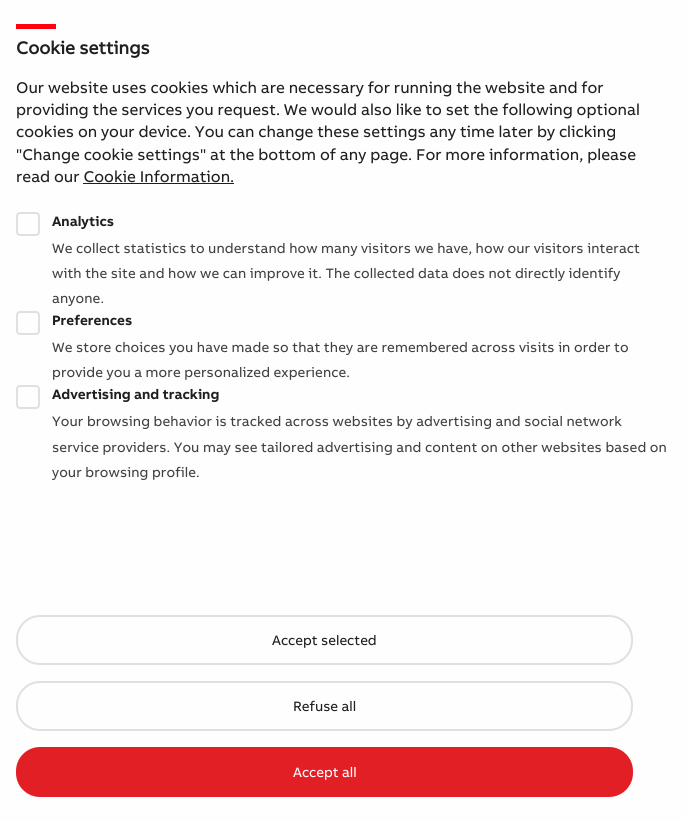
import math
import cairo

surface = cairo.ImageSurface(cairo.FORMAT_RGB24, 686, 821)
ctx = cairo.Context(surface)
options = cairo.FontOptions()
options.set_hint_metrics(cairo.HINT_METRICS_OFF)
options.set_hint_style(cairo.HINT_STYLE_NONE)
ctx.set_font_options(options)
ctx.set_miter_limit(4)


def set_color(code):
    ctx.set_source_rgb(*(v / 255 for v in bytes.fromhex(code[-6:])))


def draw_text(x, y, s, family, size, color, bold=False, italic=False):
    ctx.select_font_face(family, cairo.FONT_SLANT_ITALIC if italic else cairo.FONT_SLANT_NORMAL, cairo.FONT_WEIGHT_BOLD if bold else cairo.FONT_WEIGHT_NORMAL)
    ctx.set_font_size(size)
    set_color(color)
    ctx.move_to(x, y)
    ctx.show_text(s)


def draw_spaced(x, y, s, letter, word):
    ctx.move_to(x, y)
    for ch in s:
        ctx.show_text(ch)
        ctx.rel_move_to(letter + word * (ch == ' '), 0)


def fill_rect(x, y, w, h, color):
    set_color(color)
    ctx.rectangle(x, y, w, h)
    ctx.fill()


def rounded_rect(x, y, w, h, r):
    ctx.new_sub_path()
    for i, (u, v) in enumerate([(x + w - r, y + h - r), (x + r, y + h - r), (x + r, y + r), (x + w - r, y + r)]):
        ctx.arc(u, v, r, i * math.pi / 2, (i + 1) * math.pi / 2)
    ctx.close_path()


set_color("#fefefe")
ctx.paint()
fill_rect(16, 24, 40, 5, "#ff000f")
draw_text(16, 54, "Cookie settings", "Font", 18, "#1f1f1f", bold=True)
draw_text(16, 93, "Our website uses cookies which are necessary for running the website and for", "Font", 16, "#1f1f1f")
draw_text(16, 115, "providing the services you request. We would also like to set the following optional", "Font", 16, "#1f1f1f")
draw_text(16, 137, "cookies on your device. You can change these settings any time later by clicking", "Font", 16, "#1f1f1f")
draw_text(16, 160, "\"Change cookie settings\" at the bottom of any page. For more information, please", "Font", 16, "#1f1f1f")
draw_text(16, 182, "read our Cookie Information.", "Font", 16, "#1f1f1f")
fill_rect(83, 183, 151, 1, "#1f1f1f")
rounded_rect(17, 213, 22, 22, 3)
set_color("#e0e0e0")
ctx.stroke()
draw_text(52, 226, "Analytics", "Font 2", 14, "#1f1f1f", bold=True)
ctx.select_font_face("Font")
set_color("#414141")
draw_spaced(52, 253, "We collect statistics to understand how many visitors we have, how our visitors interact", 0.1, 0)
draw_spaced(52, 278, "with the site and how we can improve it. The collected data does not directly identify", 0.1, 0)
draw_spaced(52, 303, "anyone.", 0.1, 0)
rounded_rect(17, 312, 22, 22, 3)
set_color("#e0e0e0")
ctx.stroke()
draw_text(52, 325, "Preferences", "Font 2", 14, "#1f1f1f", bold=True)
ctx.select_font_face("Font")
set_color("#414141")
draw_spaced(52, 352, "We store choices you have made so that they are remembered across visits in order to", 0.1, 0)
draw_spaced(52, 377, "provide you a more personalized experience.", 0.1, 0)
rounded_rect(17, 386, 22, 22, 3)
set_color("#e0e0e0")
ctx.stroke()
draw_text(52, 399, "Advertising and tracking", "Font 2", 14, "#1f1f1f", bold=True)
ctx.select_font_face("Font")
set_color("#414141")
draw_spaced(52, 426, "Your browsing behavior is tracked across websites by advertising and social network", 0.1, 0)
draw_spaced(52, 452, "service providers. You may see tailored advertising and content on other websites based on", 0.1, 0)
draw_spaced(52, 477, "your browsing profile.", 0.1, 0)
rounded_rect(17, 616, 615, 48, 23)
set_color("#e0e0e0")
ctx.stroke()
draw_text(272, 645, "Accept selected", "Font", 14, "#1f1f1f")
rounded_rect(17, 682, 615, 48, 23)
set_color("#e0e0e0")
ctx.stroke()
draw_text(293, 711, "Refuse all", "Font", 14, "#1f1f1f")
set_color("#e31f26")
rounded_rect(16, 747, 617, 50, 24)
ctx.fill()
draw_text(293, 777, "Accept all", "Font", 14, "#ffffff")
surface.write_to_png("output.png")
